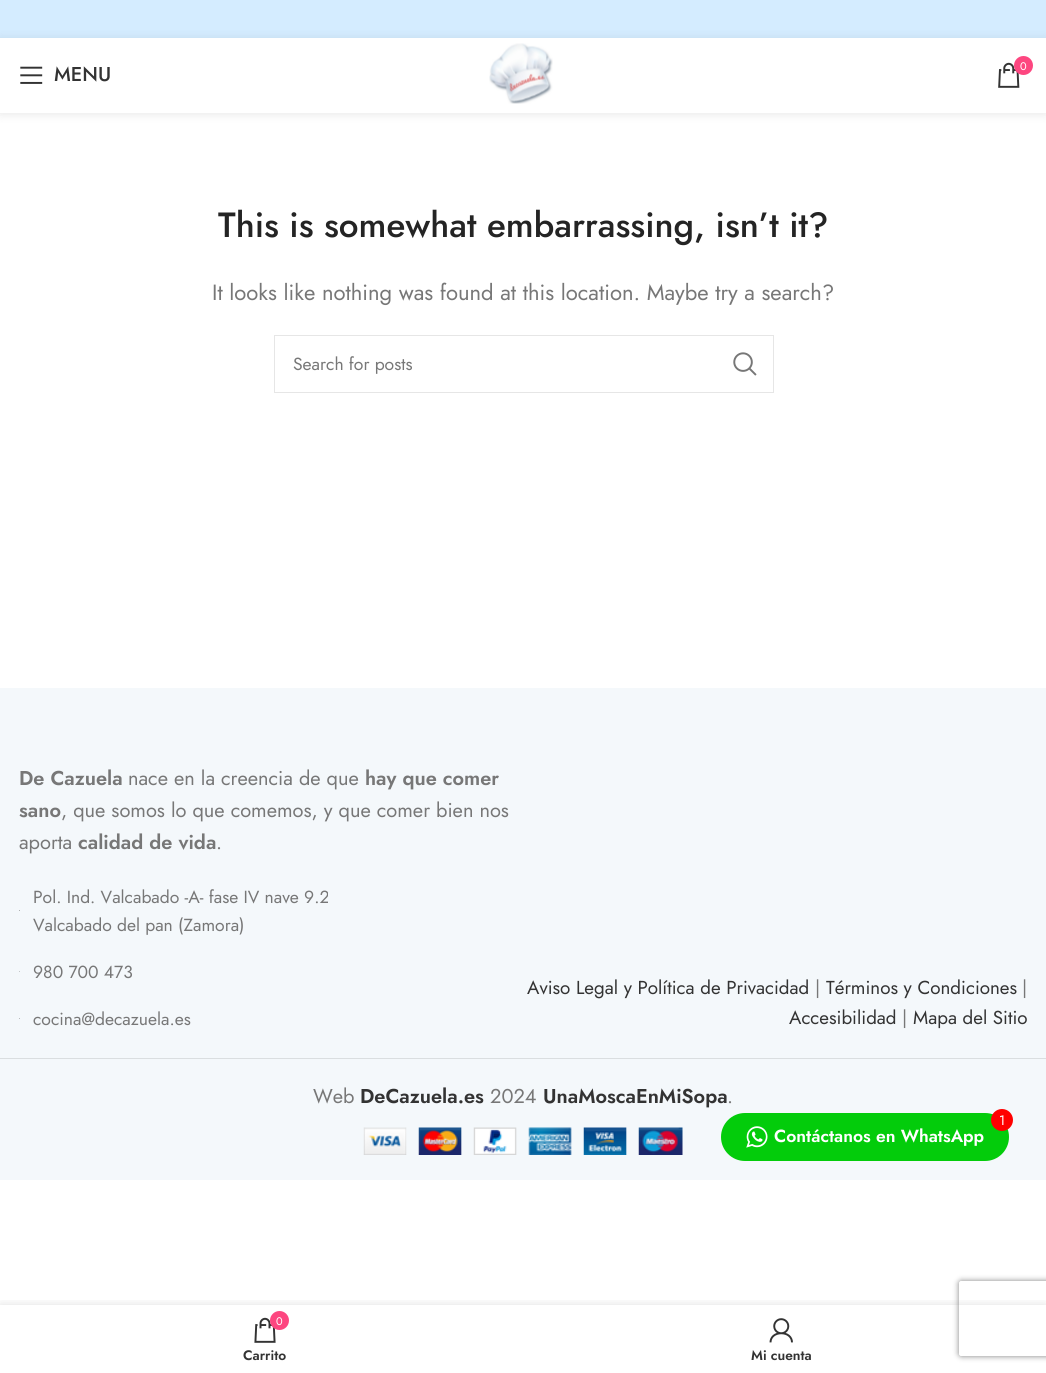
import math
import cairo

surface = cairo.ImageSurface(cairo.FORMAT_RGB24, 1046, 1373)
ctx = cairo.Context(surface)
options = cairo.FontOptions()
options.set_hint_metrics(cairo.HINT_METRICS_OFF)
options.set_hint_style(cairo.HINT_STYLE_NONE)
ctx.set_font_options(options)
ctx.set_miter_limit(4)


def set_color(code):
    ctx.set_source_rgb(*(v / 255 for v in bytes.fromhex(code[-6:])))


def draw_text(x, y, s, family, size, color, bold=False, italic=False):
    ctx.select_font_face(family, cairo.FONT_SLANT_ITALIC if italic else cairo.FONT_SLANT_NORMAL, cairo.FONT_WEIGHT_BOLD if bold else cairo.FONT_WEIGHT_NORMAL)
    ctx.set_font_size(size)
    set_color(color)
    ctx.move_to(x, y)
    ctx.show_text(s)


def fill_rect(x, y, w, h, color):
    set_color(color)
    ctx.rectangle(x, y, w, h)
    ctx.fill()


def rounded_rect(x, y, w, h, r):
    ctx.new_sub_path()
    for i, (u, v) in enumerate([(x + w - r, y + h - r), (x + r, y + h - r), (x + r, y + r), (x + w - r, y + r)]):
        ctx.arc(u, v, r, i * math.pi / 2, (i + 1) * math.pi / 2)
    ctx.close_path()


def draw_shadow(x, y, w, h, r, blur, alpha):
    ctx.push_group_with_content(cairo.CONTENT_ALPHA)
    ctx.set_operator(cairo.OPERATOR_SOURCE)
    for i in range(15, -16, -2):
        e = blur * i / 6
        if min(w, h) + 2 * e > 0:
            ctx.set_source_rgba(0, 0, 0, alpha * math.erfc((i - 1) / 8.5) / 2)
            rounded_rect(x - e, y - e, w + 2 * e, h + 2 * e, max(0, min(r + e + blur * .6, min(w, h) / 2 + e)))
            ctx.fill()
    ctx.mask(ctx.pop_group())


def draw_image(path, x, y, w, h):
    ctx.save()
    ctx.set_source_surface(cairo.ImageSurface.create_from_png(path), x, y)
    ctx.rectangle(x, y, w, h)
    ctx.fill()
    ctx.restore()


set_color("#ffffff")
ctx.paint()
fill_rect(0, 0, 1046, 38, "#d4ecff")
set_color("#000000")
draw_shadow(0, 39, 1046, 75, 0, 5, 0.1)
fill_rect(0, 38, 1046, 75, "#ffffff")
draw_image("assets/img1.png", 20, 66, 23, 18)
draw_text(54, 81, "MENU", "Jost Medium", 20, "#333333")
draw_image("assets/img2.png", 489, 43, 64, 61)
draw_image("assets/img3.png", 998, 62, 22, 26)
set_color("#fd4680")
ctx.arc(1023.5, 65.5, 9.5, 0, 2 * math.pi)
ctx.fill()
draw_text(1020, 70, "0", "Jost", 11, "#ffffff")
draw_text(218, 237, "This is somewhat embarrassing, isn’t it?", "Jost Medium", 35, "#242424")
draw_text(212, 300, "It looks like nothing was found at this location. Maybe try a search?", "Jost", 22, "#777777")
ctx.rectangle(274.5, 335.5, 499, 57)
set_color("#e6e6e6")
ctx.set_line_width(1)
ctx.stroke()
draw_text(293, 370, "Search for posts", "Jost", 17.5, "#777777")
draw_image("assets/img4.png", 733, 352, 24, 24)
fill_rect(0, 688, 1046, 492, "#f4f8fb")
draw_text(19, 785, "De Cazuela", "Jost SemiBold", 20, "#777777")
draw_text(128, 785, "nace en la creencia de que", "Jost", 20, "#777777")
draw_text(365, 785, "hay que comer", "Jost SemiBold", 20, "#777777")
draw_text(19, 817, "sano", "Jost SemiBold", 20, "#777777")
draw_text(61, 817, ", que somos lo que comemos, y que comer bien nos", "Jost", 20, "#777777")
draw_text(19, 849, "aporta", "Jost", 20, "#777777")
draw_text(78, 849, "calidad de vida", "Jost SemiBold", 20, "#777777")
draw_text(216, 849, ".", "Jost", 20, "#777777")
fill_rect(19, 910, 1, 1, "#afb1b2")
draw_text(33, 903, "Pol. Ind. Valcabado -A- fase IV nave 9.2", "Jost", 17.5, "#777777")
draw_text(33, 931, "Valcabado del pan (Zamora)", "Jost", 17.5, "#777777")
fill_rect(19, 971, 1, 1, "#c4c7c9")
draw_text(33, 978, "980 700 473", "Jost", 17.5, "#777777")
fill_rect(19, 1018, 1, 1, "#b9bbbd")
draw_text(33, 1025, "cocina@decazuela.es", "Jost", 17.5, "#777777")
draw_text(527, 994, "Aviso Legal y Política de Privacidad", "Jost", 18.75, "#333333")
draw_text(815, 994, "|", "Jost", 18.75, "#777777")
draw_text(826, 994, "Términos y Condiciones", "Jost", 18.75, "#333333")
draw_text(1022, 994, "|", "Jost", 18.75, "#777777")
draw_text(789, 1024, "Accesibilidad", "Jost", 18.75, "#333333")
draw_text(902, 1024, "|", "Jost", 18.75, "#777777")
draw_text(913, 1024, "Mapa del Sitio", "Jost", 18.75, "#333333")
fill_rect(0, 1058, 1046, 1, "#dadee0")
draw_text(313, 1103, "Web", "Jost", 20, "#777777")
draw_text(360, 1103, "DeCazuela.es", "Jost SemiBold", 20, "#333333")
draw_text(490, 1103, "2024", "Jost", 20, "#777777")
draw_text(543, 1103, "UnaMoscaEnMiSopa", "Jost SemiBold", 20, "#333333")
draw_text(727, 1103, ".", "Jost", 20, "#777777")
draw_image("assets/img5.png", 363, 1127, 320, 28)
set_color("#03cc0b")
rounded_rect(721, 1113, 288, 48, 24)
ctx.fill()
set_color("#ff0000")
ctx.arc(1002, 1120, 11, 0, 2 * math.pi)
ctx.fill()
draw_text(999, 1125, "1", "Jost", 13.75, "#ffffff")
draw_image("assets/img6.png", 746, 1126, 22, 22)
draw_text(774, 1142, "Contáctanos en WhatsApp", "Jost SemiBold", 17.5, "#ffffff")
ctx.save()
ctx.rectangle(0, 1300, 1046, 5)
ctx.clip()
set_color("#000000")
draw_shadow(0, 1305, 1046, 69, 0, 5.5, 0.12)
ctx.restore()
draw_image("assets/img7.png", 254, 1317, 22, 26)
set_color("#fd4680")
ctx.arc(279.5, 1320.5, 9.5, 0, 2 * math.pi)
ctx.fill()
draw_text(276, 1325, "0", "Jost", 11, "#ffffff")
draw_text(243, 1360, "Carrito", "Jost SemiBold", 13.75, "#333333")
draw_image("assets/img8.png", 769, 1318, 24, 25)
draw_text(751, 1360, "Mi cuenta", "Jost SemiBold", 13.75, "#333333")
ctx.save()
ctx.set_fill_rule(cairo.FILL_RULE_EVEN_ODD)
ctx.new_path()
ctx.move_to(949, 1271)
ctx.line_to(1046, 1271)
ctx.line_to(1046, 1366)
ctx.line_to(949, 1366)
ctx.close_path()
ctx.move_to(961.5, 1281)
ctx.line_to(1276.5, 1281)
ctx.curve_to(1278, 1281, 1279, 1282, 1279, 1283.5)
ctx.line_to(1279, 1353.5)
ctx.curve_to(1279, 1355, 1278, 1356, 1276.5, 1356)
ctx.line_to(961.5, 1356)
ctx.curve_to(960, 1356, 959, 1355, 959, 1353.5)
ctx.line_to(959, 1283.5)
ctx.curve_to(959, 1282, 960, 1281, 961.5, 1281)
ctx.close_path()
ctx.clip()
set_color("#808080")
draw_shadow(959, 1281, 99, 75, 2.5, 3, 1)
ctx.restore()
surface.write_to_png("output.png")
